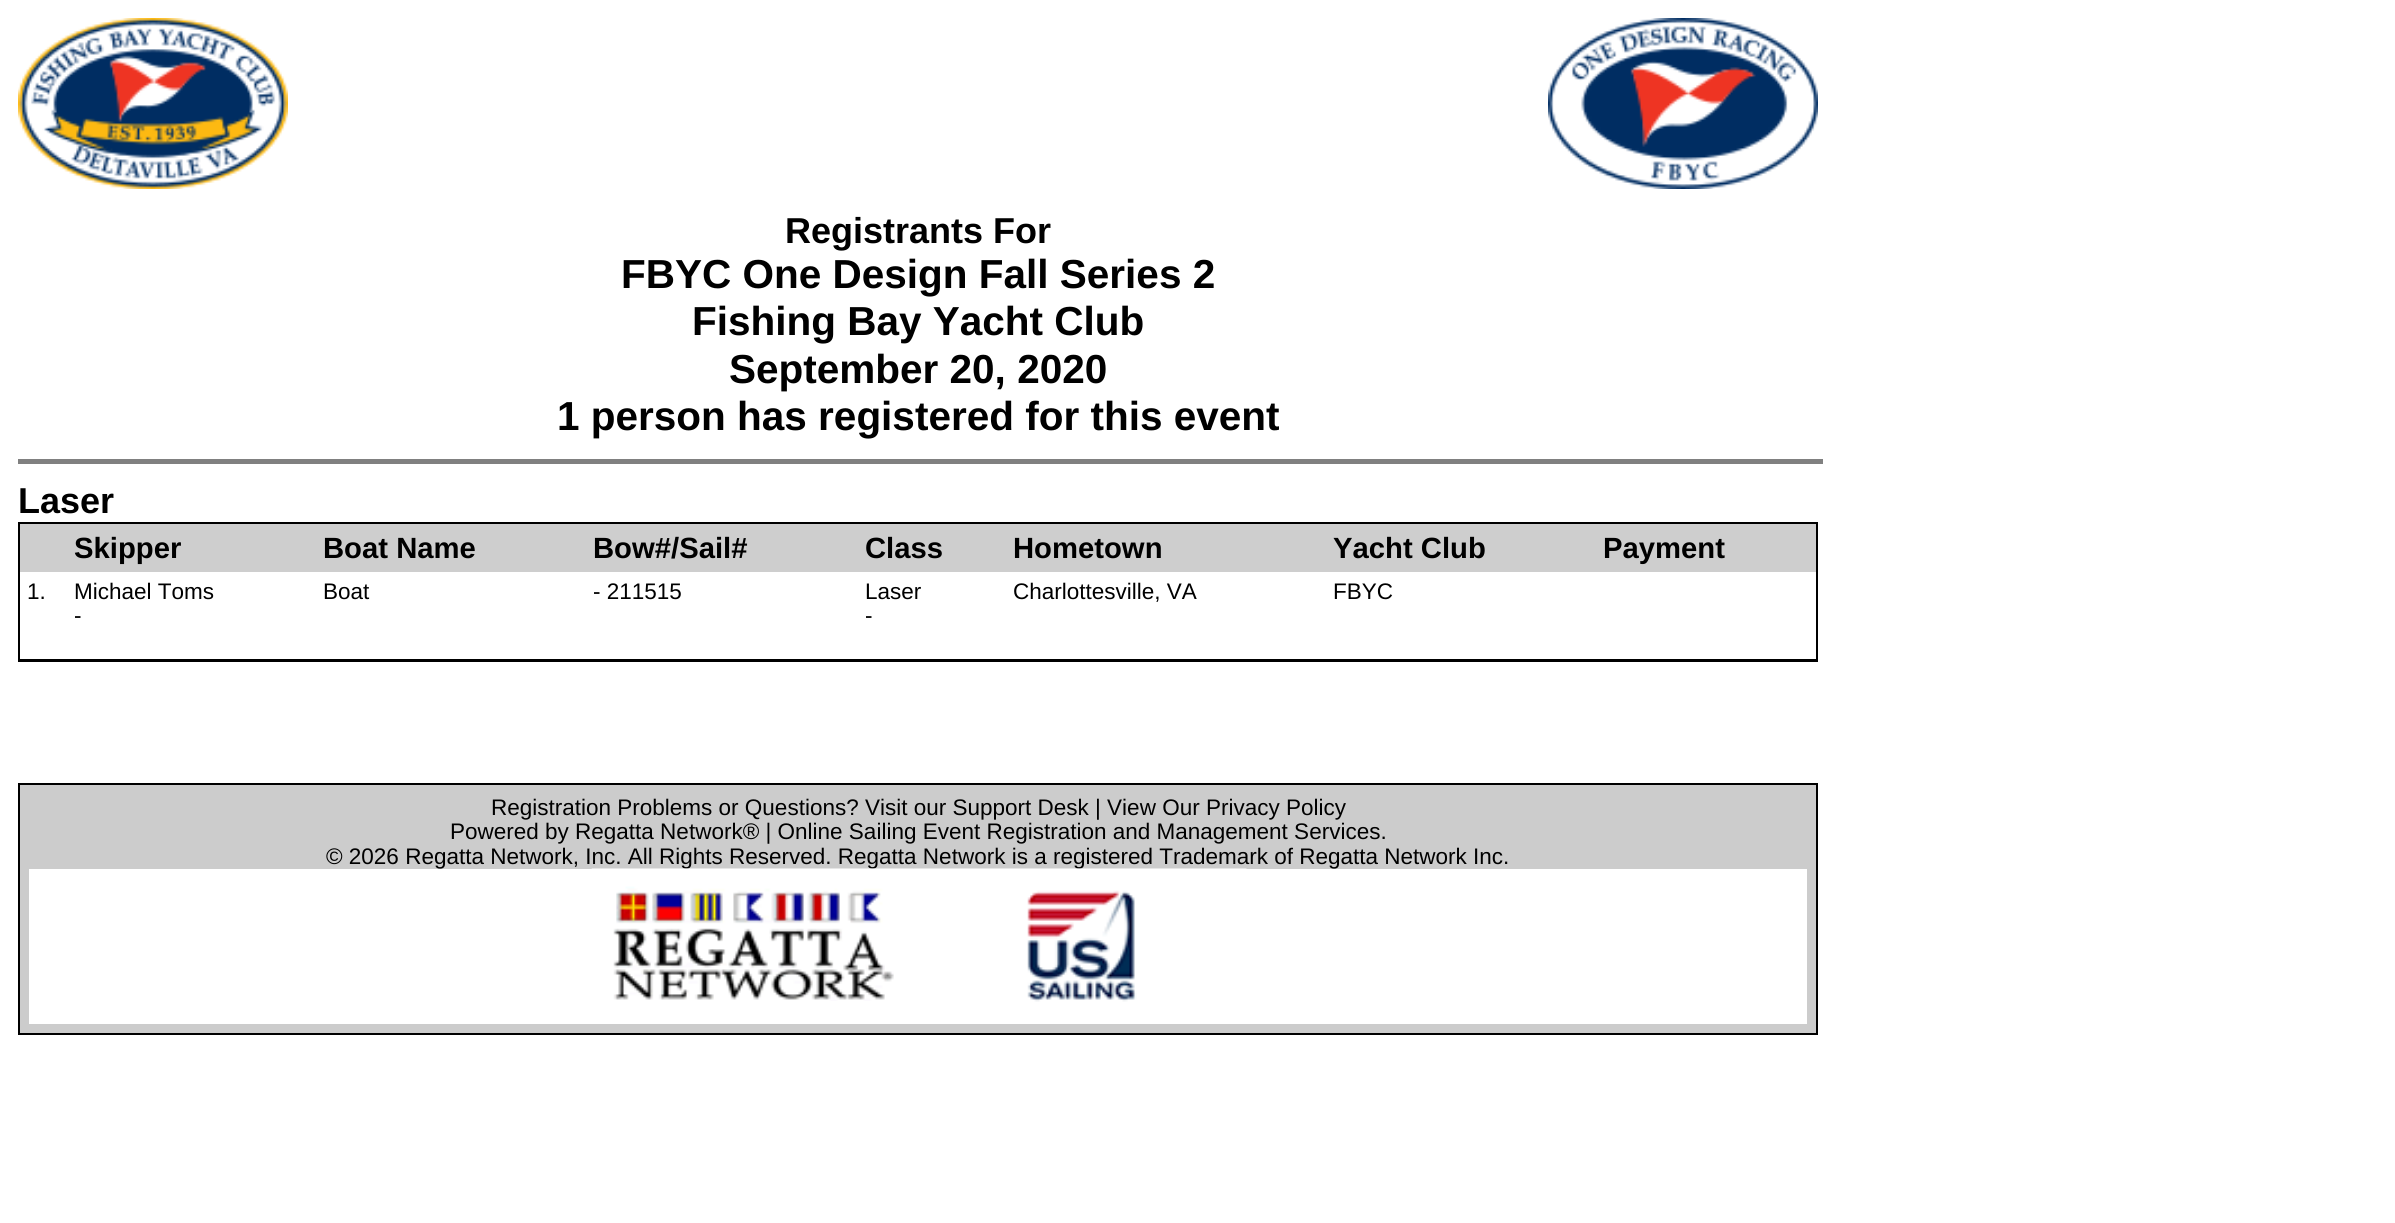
import math
import cairo

surface = cairo.ImageSurface(cairo.FORMAT_RGB24, 2395, 1223)
ctx = cairo.Context(surface)
options = cairo.FontOptions()
options.set_hint_metrics(cairo.HINT_METRICS_OFF)
options.set_hint_style(cairo.HINT_STYLE_NONE)
ctx.set_font_options(options)
ctx.set_miter_limit(4)


def set_color(code):
    ctx.set_source_rgb(*(v / 255 for v in bytes.fromhex(code[-6:])))


def draw_text(x, y, s, family, size, color, bold=False, italic=False):
    ctx.select_font_face(family, cairo.FONT_SLANT_ITALIC if italic else cairo.FONT_SLANT_NORMAL, cairo.FONT_WEIGHT_BOLD if bold else cairo.FONT_WEIGHT_NORMAL)
    ctx.set_font_size(size)
    set_color(color)
    ctx.move_to(x, y)
    ctx.show_text(s)


def fill_rect(x, y, w, h, color):
    set_color(color)
    ctx.rectangle(x, y, w, h)
    ctx.fill()


def draw_image(path, x, y, w, h):
    ctx.save()
    ctx.set_source_surface(cairo.ImageSurface.create_from_png(path), x, y)
    ctx.rectangle(x, y, w, h)
    ctx.fill()
    ctx.restore()


set_color("#ffffff")
ctx.paint()
draw_image("assets/img1.png", 18, 18, 270, 171)
draw_image("assets/img2.png", 1548, 18, 270, 171)
draw_text(785, 243, "Registrants For", "Liberation Sans", 36, "#000000", bold=True)
draw_text(621, 288, "FBYC One Design Fall Series 2", "Liberation Sans", 40.5, "#000000", bold=True)
draw_text(692, 335, "Fishing Bay Yacht Club", "Liberation Sans", 40.5, "#000000", bold=True)
draw_text(729, 383, "September 20, 2020", "Liberation Sans", 40.5, "#000000", bold=True)
draw_text(557, 430, "1 person has registered for this event", "Liberation Sans", 40.5, "#000000", bold=True)
fill_rect(18, 459, 1805, 5, "#808080")
draw_text(18, 513, "Laser", "Liberation Sans", 36, "#000000", bold=True)
fill_rect(18, 522, 1800, 140, "#000000")
fill_rect(20, 524, 1796, 48, "#cecece")
draw_text(74, 558, "Skipper", "Liberation Sans", 29.25, "#000000", bold=True)
draw_text(323, 558, "Boat Name", "Liberation Sans", 29.25, "#000000", bold=True)
draw_text(593, 558, "Bow#/Sail#", "Liberation Sans", 29.25, "#000000", bold=True)
draw_text(865, 558, "Class", "Liberation Sans", 29.25, "#000000", bold=True)
draw_text(1013, 558, "Hometown", "Liberation Sans", 29.25, "#000000", bold=True)
draw_text(1333, 558, "Yacht Club", "Liberation Sans", 29.25, "#000000", bold=True)
draw_text(1603, 558, "Payment", "Liberation Sans", 29.25, "#000000", bold=True)
fill_rect(20, 572, 1796, 87, "#ffffff")
draw_text(27, 599, "1.", "Liberation Sans", 22.5, "#000000")
draw_text(74, 599, "Michael Toms", "Liberation Sans", 22.5, "#000000")
draw_text(74, 623, "-", "Liberation Sans", 22.5, "#000000")
draw_text(323, 599, "Boat", "Liberation Sans", 22.5, "#000000")
draw_text(593, 599, "- 211515", "Liberation Sans", 22.5, "#000000")
draw_text(865, 599, "Laser", "Liberation Sans", 22.5, "#000000")
draw_text(865, 623, "-", "Liberation Sans", 22.5, "#000000")
draw_text(1013, 599, "Charlottesville, VA", "Liberation Sans", 22.5, "#000000")
draw_text(1333, 599, "FBYC", "Liberation Sans", 22.5, "#000000")
set_color("#cccccc")
ctx.rectangle(19, 784, 1798, 250)
ctx.fill_preserve()
set_color("#000000")
ctx.stroke()
draw_text(491, 815, "Registration Problems or Questions? Visit our Support Desk | View Our Privacy Policy", "Liberation Sans", 22.5, "#000000")
draw_text(450, 839, "Powered by Regatta Network® | Online Sailing Event Registration and Management Services.", "Liberation Sans", 22.5, "#000000")
draw_text(326, 864, "© 2026 Regatta Network, Inc. All Rights Reserved. Regatta Network is a registered Trademark of Regatta Network Inc.", "Liberation Sans", 22.5, "#000000")
fill_rect(29, 869, 1778, 155, "#ffffff")
draw_image("assets/img3.png", 591, 868, 323, 133)
draw_image("assets/img4.png", 913, 868, 334, 134)
surface.write_to_png("output.png")
